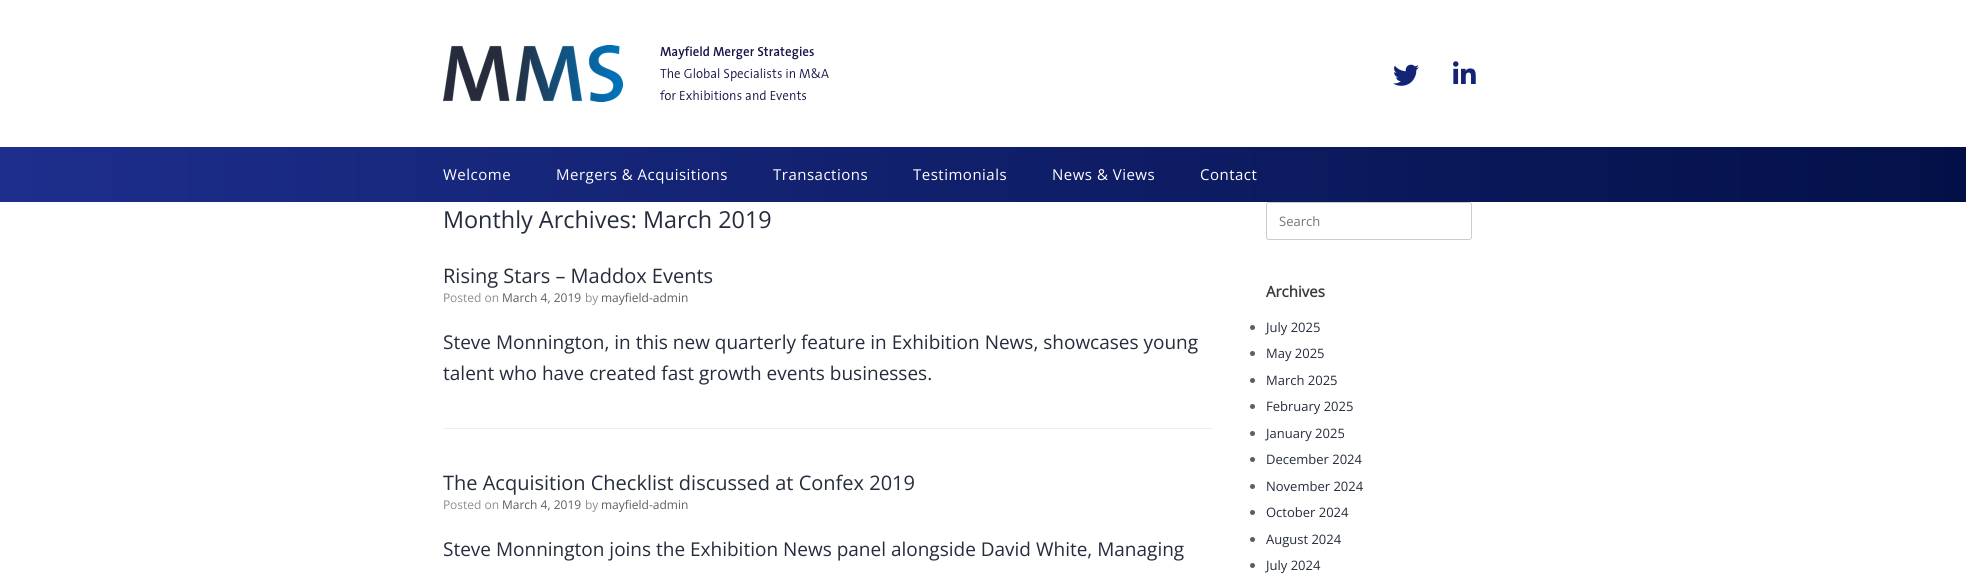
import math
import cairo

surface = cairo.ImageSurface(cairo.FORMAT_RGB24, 1966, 579)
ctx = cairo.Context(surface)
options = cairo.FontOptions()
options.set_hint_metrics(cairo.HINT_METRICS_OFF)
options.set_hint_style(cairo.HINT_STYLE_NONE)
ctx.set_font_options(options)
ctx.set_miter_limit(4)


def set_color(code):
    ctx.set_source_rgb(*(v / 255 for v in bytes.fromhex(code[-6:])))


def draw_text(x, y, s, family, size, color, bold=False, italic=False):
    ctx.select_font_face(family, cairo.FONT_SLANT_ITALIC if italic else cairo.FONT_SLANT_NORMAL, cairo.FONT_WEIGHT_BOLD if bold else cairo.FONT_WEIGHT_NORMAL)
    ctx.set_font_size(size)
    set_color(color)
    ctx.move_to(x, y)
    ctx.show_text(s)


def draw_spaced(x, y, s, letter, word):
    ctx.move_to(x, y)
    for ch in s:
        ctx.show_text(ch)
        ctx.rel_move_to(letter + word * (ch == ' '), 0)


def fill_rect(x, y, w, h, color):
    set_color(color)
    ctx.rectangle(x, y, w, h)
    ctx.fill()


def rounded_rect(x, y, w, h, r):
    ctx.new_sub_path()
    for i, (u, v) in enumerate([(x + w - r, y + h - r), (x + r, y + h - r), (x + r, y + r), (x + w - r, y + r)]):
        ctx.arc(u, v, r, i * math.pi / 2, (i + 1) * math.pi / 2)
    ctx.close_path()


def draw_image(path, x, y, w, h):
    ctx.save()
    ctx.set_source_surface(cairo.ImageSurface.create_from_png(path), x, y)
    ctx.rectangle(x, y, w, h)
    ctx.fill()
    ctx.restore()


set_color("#ffffff")
ctx.paint()
draw_image("assets/img1.png", 443, 45, 386, 57)
draw_image("assets/img2.png", 1393, 64, 26, 22)
draw_image("assets/img3.png", 1453, 61, 23, 23)
gradient = cairo.LinearGradient(0, 175, 1966, 174)
gradient.add_color_stop_rgba(0, 0.114, 0.18, 0.549, 1)
gradient.add_color_stop_rgba(1, 0.012, 0.063, 0.282, 1)
ctx.set_source(gradient)
ctx.rectangle(0, 147, 1966, 55)
ctx.fill()
ctx.select_font_face("Open Sans")
ctx.set_font_size(15)
set_color("#ffffff")
draw_spaced(443, 180, "Welcome", 0.5, 0)
draw_spaced(556, 180, "Mergers & Acquisitions", 0.5, 0)
draw_spaced(773, 180, "Transactions", 0.5, 0)
draw_spaced(913, 180, "Testimonials", 0.5, 0)
draw_spaced(1052, 180, "News & Views", 0.5, 0)
draw_spaced(1200, 180, "Contact", 0.5, 0)
draw_text(443, 228, "Monthly Archives: March 2019", "Open Sans", 23.4, "#252c3b")
fill_rect(443, 428, 770, 1, "#eeeeee")
draw_text(443, 283, "Rising Stars – Maddox Events", "Open Sans", 20, "#252c3b")
draw_text(443, 302, "P", "Noto Sans", 12, "#8f8f8f")
draw_text(450, 302, "osted on", "Open Sans", 12, "#8f8f8f")
draw_text(502, 302, "March 4, 2019", "Open Sans", 12, "#5e5e5e")
draw_text(585, 302, "by", "Open Sans", 12, "#8f8f8f")
draw_text(601, 302, "mayfield-admin", "Open Sans", 12, "#5e5e5e")
draw_text(443, 349, "Steve Monnington, in this new quarterly feature in Exhibition News, showcases young", "Open Sans", 19, "#252c3b")
draw_text(443, 380, "talent who have created fast growth events businesses.", "Open Sans", 19, "#252c3b")
draw_text(443, 490, "The Acquisition Checklist discussed at Confex 2019", "Open Sans", 20, "#252c3b")
draw_text(443, 509, "P", "Noto Sans", 12, "#8f8f8f")
draw_text(450, 509, "osted on", "Open Sans", 12, "#8f8f8f")
draw_text(502, 509, "March 4, 2019", "Open Sans", 12, "#5e5e5e")
draw_text(585, 509, "by", "Open Sans", 12, "#8f8f8f")
draw_text(601, 509, "mayfield-admin", "Open Sans", 12, "#5e5e5e")
draw_text(443, 556, "Steve Monnington joins the Exhibition News panel alongside David White, Managing", "Open Sans", 19, "#252c3b")
rounded_rect(1266.5, 202.5, 205, 37, 2.5)
set_color("#cccccc")
ctx.set_line_width(1)
ctx.stroke()
draw_text(1279, 226, "Search", "Open Sans", 13, "#757575")
draw_text(1266, 297, "Archives", "Open Sans", 15, "#3b3b3b", bold=True)
set_color("#5e5e5e")
ctx.new_path()
ctx.arc(1252.5, 327.5, 2.5, 0, 2 * math.pi)
ctx.fill()
draw_text(1266, 332, "July 2025", "Open Sans", 13, "#252c3b")
set_color("#5e5e5e")
ctx.new_path()
ctx.arc(1252.5, 353.5, 2.5, 0, 2 * math.pi)
ctx.fill()
draw_text(1266, 358, "May 2025", "Open Sans", 13, "#252c3b")
set_color("#5e5e5e")
ctx.new_path()
ctx.arc(1252.5, 380.5, 2.5, 0, 2 * math.pi)
ctx.fill()
draw_text(1266, 385, "March 2025", "Open Sans", 13, "#252c3b")
set_color("#5e5e5e")
ctx.new_path()
ctx.arc(1252.5, 406.5, 2.5, 0, 2 * math.pi)
ctx.fill()
draw_text(1266, 411, "February 2025", "Open Sans", 13, "#252c3b")
set_color("#5e5e5e")
ctx.new_path()
ctx.arc(1252.5, 433.5, 2.5, 0, 2 * math.pi)
ctx.fill()
draw_text(1266, 438, "January 2025", "Open Sans", 13, "#252c3b")
set_color("#5e5e5e")
ctx.new_path()
ctx.arc(1252.5, 459.5, 2.5, 0, 2 * math.pi)
ctx.fill()
draw_text(1266, 464, "December 2024", "Open Sans", 13, "#252c3b")
set_color("#5e5e5e")
ctx.new_path()
ctx.arc(1252.5, 486.5, 2.5, 0, 2 * math.pi)
ctx.fill()
draw_text(1266, 491, "November 2024", "Open Sans", 13, "#252c3b")
set_color("#5e5e5e")
ctx.new_path()
ctx.arc(1252.5, 512.5, 2.5, 0, 2 * math.pi)
ctx.fill()
draw_text(1266, 517, "October 2024", "Open Sans", 13, "#252c3b")
set_color("#5e5e5e")
ctx.new_path()
ctx.arc(1252.5, 539.5, 2.5, 0, 2 * math.pi)
ctx.fill()
draw_text(1266, 544, "August 2024", "Open Sans", 13, "#252c3b")
set_color("#5e5e5e")
ctx.new_path()
ctx.arc(1252.5, 565.5, 2.5, 0, 2 * math.pi)
ctx.fill()
draw_text(1266, 570, "July 2024", "Open Sans", 13, "#252c3b")
surface.write_to_png("output.png")
